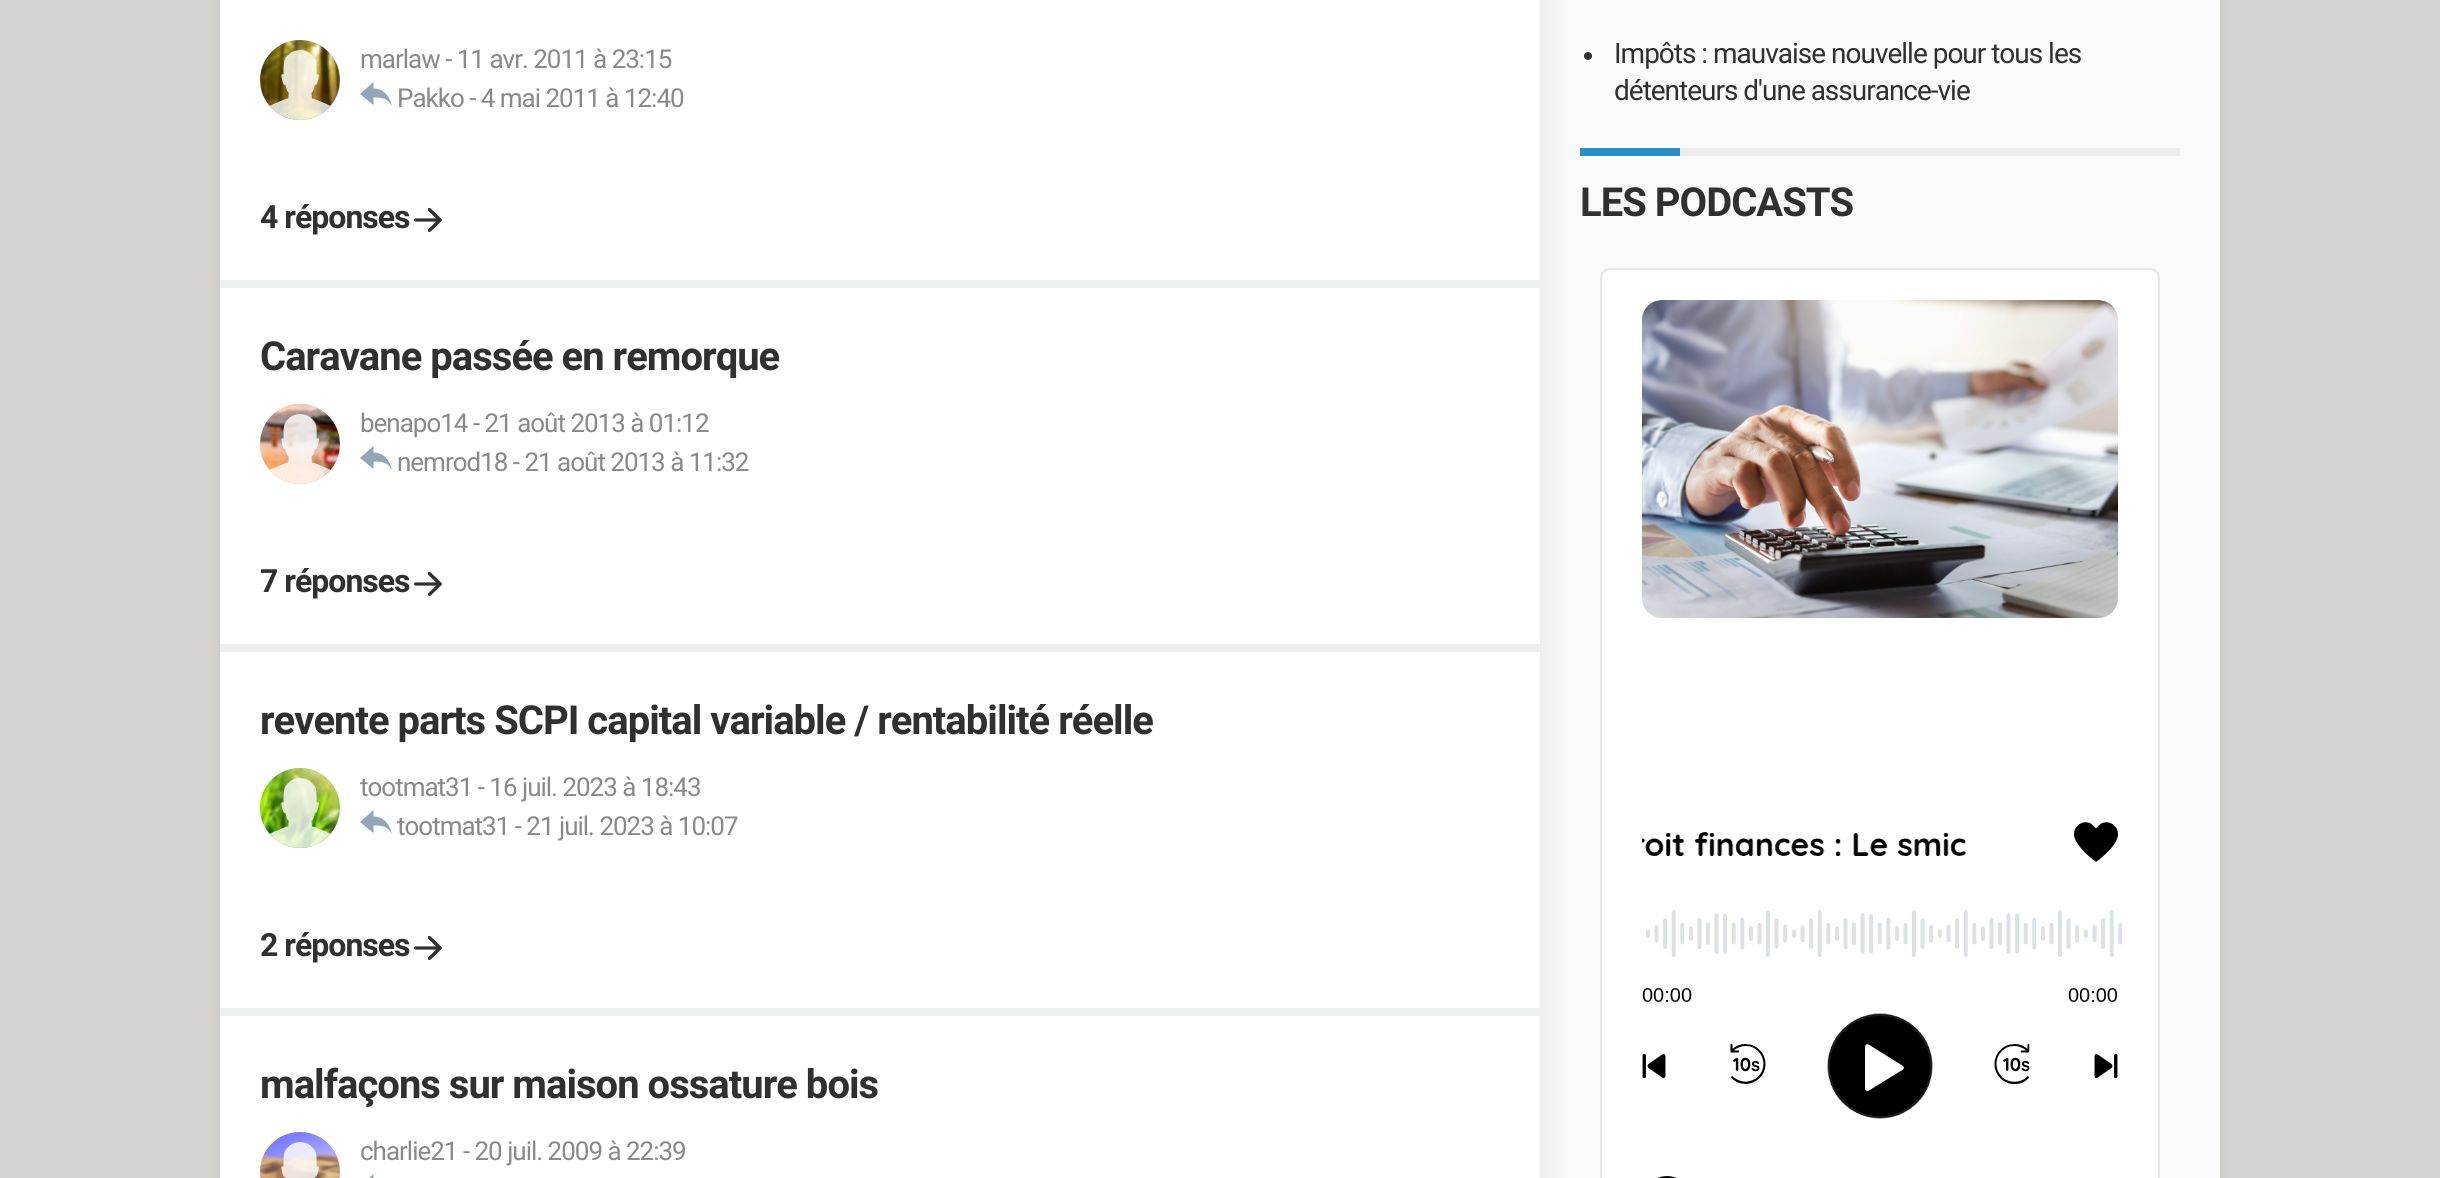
import math
import cairo

surface = cairo.ImageSurface(cairo.FORMAT_RGB24, 2440, 1178)
ctx = cairo.Context(surface)
options = cairo.FontOptions()
options.set_hint_metrics(cairo.HINT_METRICS_OFF)
options.set_hint_style(cairo.HINT_STYLE_NONE)
ctx.set_font_options(options)
ctx.set_miter_limit(4)


def set_color(code):
    ctx.set_source_rgb(*(v / 255 for v in bytes.fromhex(code[-6:])))


def draw_spaced(x, y, s, letter, word):
    ctx.move_to(x, y)
    for ch in s:
        ctx.show_text(ch)
        ctx.rel_move_to(letter + word * (ch == ' '), 0)


def fill_rect(x, y, w, h, color):
    set_color(color)
    ctx.rectangle(x, y, w, h)
    ctx.fill()


def rounded_rect(x, y, w, h, r):
    ctx.new_sub_path()
    for i, (u, v) in enumerate([(x + w - r, y + h - r), (x + r, y + h - r), (x + r, y + r), (x + w - r, y + r)]):
        ctx.arc(u, v, r, i * math.pi / 2, (i + 1) * math.pi / 2)
    ctx.close_path()


def draw_shadow(x, y, w, h, r, blur, alpha):
    ctx.push_group_with_content(cairo.CONTENT_ALPHA)
    ctx.set_operator(cairo.OPERATOR_SOURCE)
    for i in range(15, -16, -2):
        e = blur * i / 6
        if min(w, h) + 2 * e > 0:
            ctx.set_source_rgba(0, 0, 0, alpha * math.erfc((i - 1) / 8.5) / 2)
            rounded_rect(x - e, y - e, w + 2 * e, h + 2 * e, max(0, min(r + e + blur * .6, min(w, h) / 2 + e)))
            ctx.fill()
    ctx.mask(ctx.pop_group())


def draw_image(path, x, y, w, h):
    ctx.save()
    ctx.set_source_surface(cairo.ImageSurface.create_from_png(path), x, y)
    ctx.rectangle(x, y, w, h)
    ctx.fill()
    ctx.restore()


set_color("#d5d4d0")
ctx.paint()
set_color("#000000")
draw_shadow(220, -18, 2000, 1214, 0, 6, 0.1)
fill_rect(220, 0, 1320, 1178, "#ffffff")
fill_rect(220, 280, 1320, 8, "#eef0ef")
set_color("#b0becb")
ctx.arc(300, 80, 40, 0, 2 * math.pi)
ctx.fill()
draw_image("assets/img1.png", 260, 40, 80, 80)
draw_image("assets/img2.png", 269, 50, 62, 70)
ctx.select_font_face("Roboto")
ctx.set_font_size(26)
set_color("#898989")
draw_spaced(360, 68, "marlaw - 11 avr. 2011 à 23:15", -1, 0)
set_color("#91a6b9")
ctx.new_path()
ctx.move_to(373.5, 97.5)
ctx.line_to(373.5, 105)
ctx.line_to(360, 94)
ctx.line_to(373.5, 82)
ctx.line_to(373.5, 88.5)
ctx.curve_to(389, 88.5, 392, 106, 392, 106)
ctx.curve_to(387.5, 98, 382, 97.5, 373.5, 97.5)
ctx.close_path()
ctx.fill()
set_color("#898989")
draw_spaced(397, 107, "Pakko - 4 mai 2011 à 12:40", -1, 0)
ctx.select_font_face("Roboto", cairo.FONT_SLANT_NORMAL, cairo.FONT_WEIGHT_BOLD)
ctx.set_font_size(32)
set_color("#303030")
draw_spaced(260, 228, "4 réponses", -1, 0)
draw_image("assets/img3.png", 414, 208, 28, 24)
fill_rect(220, 644, 1320, 8, "#eef0ef")
ctx.set_font_size(40)
set_color("#303030")
draw_spaced(260, 370, "Caravane passée en remorque", -1, 0)
set_color("#b0becb")
ctx.new_path()
ctx.arc(300, 444, 40, 0, 2 * math.pi)
ctx.fill()
draw_image("assets/img4.png", 260, 404, 80, 80)
draw_image("assets/img5.png", 269, 414, 62, 70)
ctx.select_font_face("Roboto")
ctx.set_font_size(26)
set_color("#898989")
draw_spaced(360, 432, "benapo14 - 21 août 2013 à 01:12", -1, 0)
set_color("#91a6b9")
ctx.new_path()
ctx.move_to(373.5, 461.5)
ctx.line_to(373.5, 469)
ctx.line_to(360, 458)
ctx.line_to(373.5, 446)
ctx.line_to(373.5, 452.5)
ctx.curve_to(389, 452.5, 392, 470, 392, 470)
ctx.curve_to(387.5, 462, 382, 461.5, 373.5, 461.5)
ctx.close_path()
ctx.fill()
set_color("#898989")
draw_spaced(397, 471, "nemrod18 - 21 août 2013 à 11:32", -1, 0)
ctx.select_font_face("Roboto", cairo.FONT_SLANT_NORMAL, cairo.FONT_WEIGHT_BOLD)
ctx.set_font_size(32)
set_color("#303030")
draw_spaced(260, 592, "7 réponses", -1, 0)
draw_image("assets/img3.png", 414, 572, 28, 24)
fill_rect(220, 1008, 1320, 8, "#eef0ef")
ctx.set_font_size(40)
set_color("#303030")
draw_spaced(260, 734, "revente parts SCPI capital variable / rentabilité réelle", -1, 0)
set_color("#b0becb")
ctx.new_path()
ctx.arc(300, 808, 40, 0, 2 * math.pi)
ctx.fill()
draw_image("assets/img6.png", 260, 768, 80, 80)
draw_image("assets/img7.png", 269, 778, 62, 70)
ctx.select_font_face("Roboto")
ctx.set_font_size(26)
set_color("#898989")
draw_spaced(360, 796, "tootmat31 - 16 juil. 2023 à 18:43", -1, 0)
set_color("#91a6b9")
ctx.new_path()
ctx.move_to(373.5, 825.5)
ctx.line_to(373.5, 833)
ctx.line_to(360, 822)
ctx.line_to(373.5, 810)
ctx.line_to(373.5, 816.5)
ctx.curve_to(389, 816.5, 392, 834, 392, 834)
ctx.curve_to(387.5, 826, 382, 825.5, 373.5, 825.5)
ctx.close_path()
ctx.fill()
set_color("#898989")
draw_spaced(397, 835, "tootmat31 - 21 juil. 2023 à 10:07", -1, 0)
ctx.select_font_face("Roboto", cairo.FONT_SLANT_NORMAL, cairo.FONT_WEIGHT_BOLD)
ctx.set_font_size(32)
set_color("#303030")
draw_spaced(260, 956, "2 réponses", -1, 0)
draw_image("assets/img3.png", 414, 936, 28, 24)
ctx.set_font_size(40)
draw_spaced(260, 1098, "malfaçons sur maison ossature bois", -1, 0)
set_color("#b0becb")
ctx.new_path()
ctx.arc(300, 1172, 40, 0, 2 * math.pi)
ctx.fill()
draw_image("assets/img8.png", 260, 1132, 80, 46)
draw_image("assets/img9.png", 281, 1142, 38, 36)
ctx.select_font_face("Roboto")
ctx.set_font_size(26)
set_color("#898989")
draw_spaced(360, 1160, "charlie21 - 20 juil. 2009 à 22:39", -1, 0)
set_color("#91a6b9")
ctx.new_path()
ctx.move_to(373.5, 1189.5)
ctx.line_to(373.5, 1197)
ctx.line_to(360, 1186)
ctx.line_to(373.5, 1174)
ctx.line_to(373.5, 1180.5)
ctx.curve_to(389, 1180.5, 392, 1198, 392, 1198)
ctx.curve_to(387.5, 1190, 382, 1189.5, 373.5, 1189.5)
ctx.close_path()
ctx.fill()
fill_rect(1570, 0, 650, 1178, "#fafafa")
gradient = cairo.LinearGradient(1540, 2, 1570, 2)
gradient.add_color_stop_rgba(0, 0.933, 0.933, 0.933, 1)
gradient.add_color_stop_rgba(1, 0.98, 0.98, 0.98, 1)
ctx.set_source(gradient)
ctx.rectangle(1540, 0, 30, 1178)
ctx.fill()
set_color("#303030")
ctx.arc(1588, 56, 4, 0, 2 * math.pi)
ctx.fill()
ctx.set_font_size(28)
draw_spaced(1614, 63, "Impôts : mauvaise nouvelle pour tous les", -1, 0)
draw_spaced(1614, 100, "détenteurs d'une assurance-vie", -1, 0)
fill_rect(1680, 148, 500, 8, "#ececec")
fill_rect(1580, 148, 100, 8, "#298ec8")
ctx.select_font_face("Roboto", cairo.FONT_SLANT_NORMAL, cairo.FONT_WEIGHT_BOLD)
ctx.set_font_size(40)
set_color("#303030")
draw_spaced(1580, 216, "LES PODCASTS", -1, 0)
draw_image("assets/img10.png", 1600, 268, 560, 910)
surface.write_to_png("output.png")
